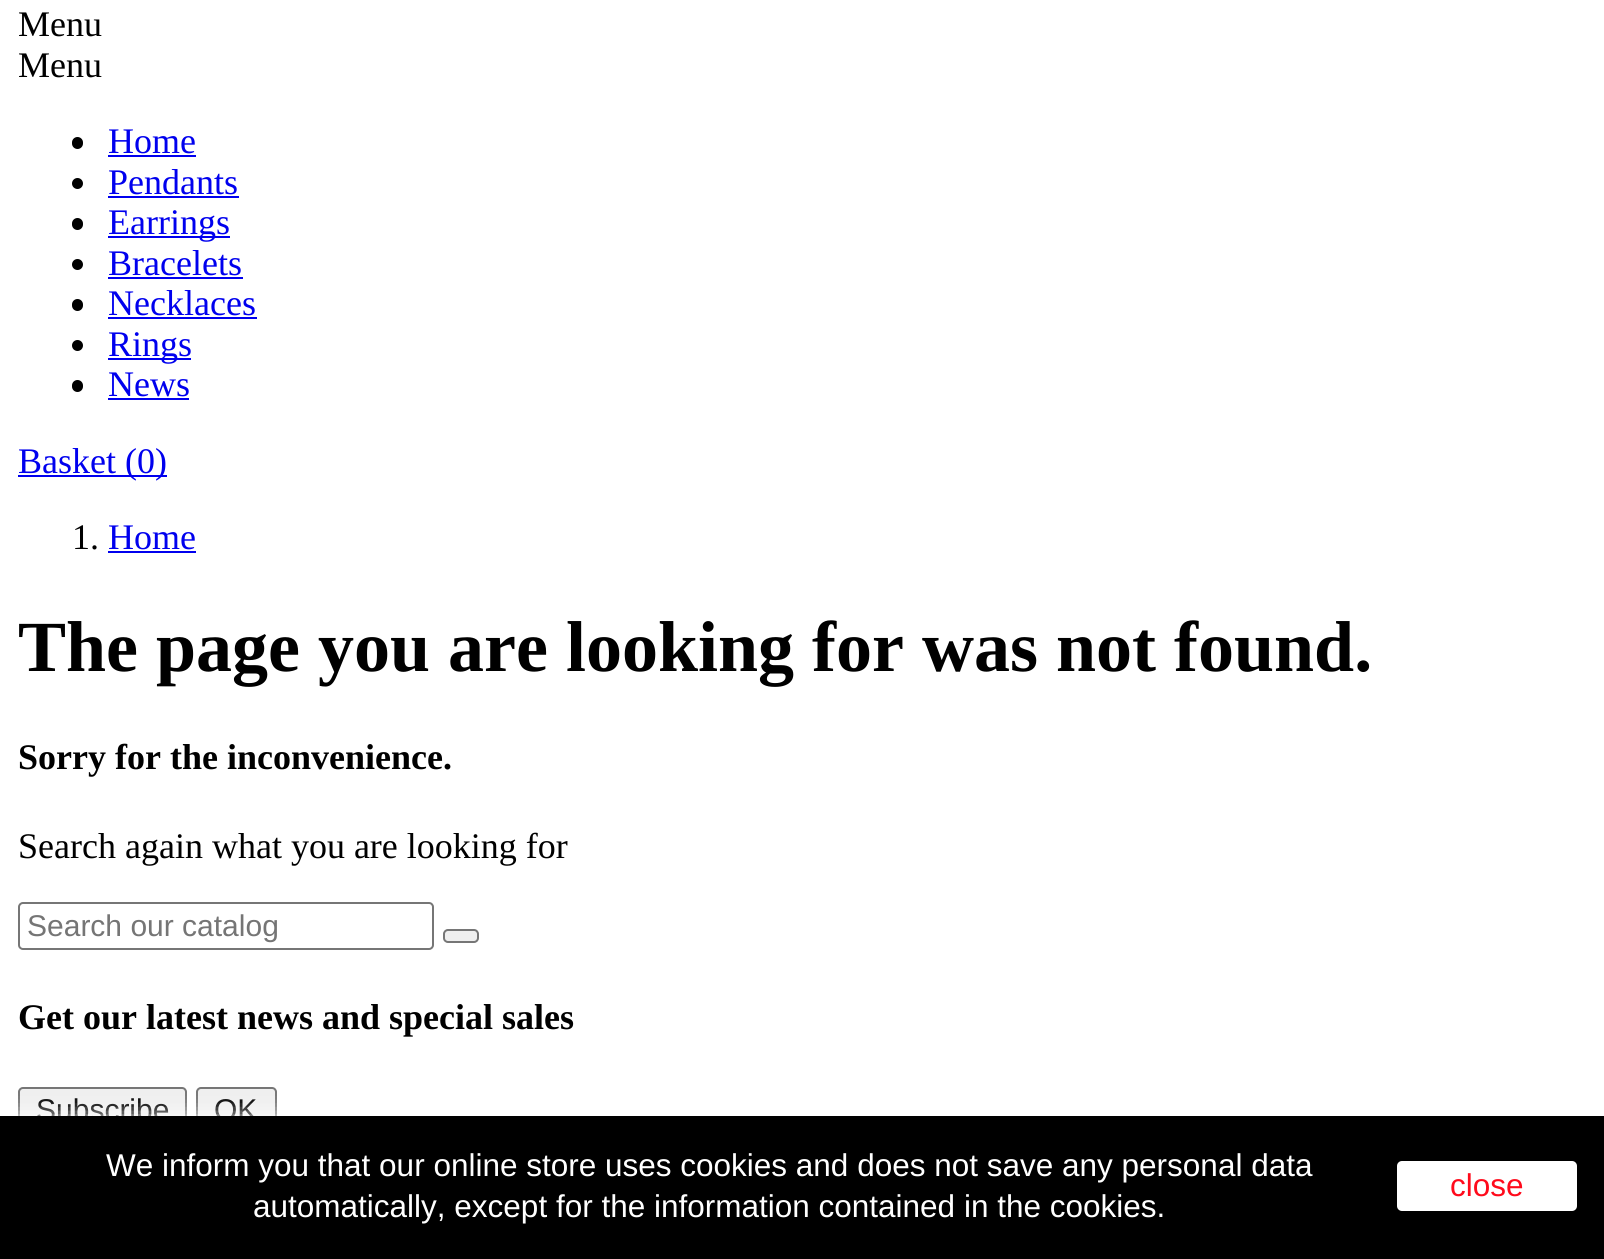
import math
import cairo

surface = cairo.ImageSurface(cairo.FORMAT_RGB24, 1604, 1259)
ctx = cairo.Context(surface)
options = cairo.FontOptions()
options.set_hint_metrics(cairo.HINT_METRICS_OFF)
options.set_hint_style(cairo.HINT_STYLE_NONE)
ctx.set_font_options(options)
ctx.set_miter_limit(4)


def set_color(code):
    ctx.set_source_rgb(*(v / 255 for v in bytes.fromhex(code[-6:])))


def draw_text(x, y, s, family, size, color, bold=False, italic=False):
    ctx.select_font_face(family, cairo.FONT_SLANT_ITALIC if italic else cairo.FONT_SLANT_NORMAL, cairo.FONT_WEIGHT_BOLD if bold else cairo.FONT_WEIGHT_NORMAL)
    ctx.set_font_size(size)
    set_color(color)
    ctx.move_to(x, y)
    ctx.show_text(s)


def fill_rect(x, y, w, h, color):
    set_color(color)
    ctx.rectangle(x, y, w, h)
    ctx.fill()


def rounded_rect(x, y, w, h, r):
    ctx.new_sub_path()
    for i, (u, v) in enumerate([(x + w - r, y + h - r), (x + r, y + h - r), (x + r, y + r), (x + w - r, y + r)]):
        ctx.arc(u, v, r, i * math.pi / 2, (i + 1) * math.pi / 2)
    ctx.close_path()


def draw_shadow(x, y, w, h, r, blur, alpha):
    ctx.push_group_with_content(cairo.CONTENT_ALPHA)
    ctx.set_operator(cairo.OPERATOR_SOURCE)
    for i in range(15, -16, -2):
        e = blur * i / 6
        if min(w, h) + 2 * e > 0:
            ctx.set_source_rgba(0, 0, 0, alpha * math.erfc((i - 1) / 8.5) / 2)
            rounded_rect(x - e, y - e, w + 2 * e, h + 2 * e, max(0, min(r + e + blur * .6, min(w, h) / 2 + e)))
            ctx.fill()
    ctx.mask(ctx.pop_group())


set_color("#ffffff")
ctx.paint()
draw_text(18, 36, "Menu", "Liberation Serif", 36, "#000000")
draw_text(18, 77, "Menu", "Liberation Serif", 36, "#000000")
rounded_rect(72, 137, 11, 12, 5.5)
ctx.fill()
draw_text(108, 153, "Home", "Liberation Serif", 36, "#0000ee")
fill_rect(108, 155, 88, 2, "#0000ee")
set_color("#000000")
ctx.new_path()
ctx.arc(77.5, 183.5, 5.5, 0, 2 * math.pi)
ctx.fill()
draw_text(108, 194, "Pendants", "Liberation Serif", 36, "#0000ee")
fill_rect(108, 196, 131, 2, "#0000ee")
set_color("#000000")
rounded_rect(72, 218, 11, 12, 5.5)
ctx.fill()
fill_rect(108, 236, 122, 2, "#0000ee")
draw_text(108, 234, "Earrings", "Liberation Serif", 36, "#0000ee")
set_color("#000000")
ctx.new_path()
ctx.arc(77.5, 264.5, 5.5, 0, 2 * math.pi)
ctx.fill()
draw_text(108, 275, "Bracelets", "Liberation Serif", 36, "#0000ee")
fill_rect(108, 277, 135, 2, "#0000ee")
set_color("#000000")
rounded_rect(72, 299, 11, 12, 5.5)
ctx.fill()
draw_text(108, 315, "Necklaces", "Liberation Serif", 36, "#0000ee")
fill_rect(108, 317, 149, 2, "#0000ee")
set_color("#000000")
ctx.new_path()
ctx.arc(77.5, 345.5, 5.5, 0, 2 * math.pi)
ctx.fill()
fill_rect(108, 358, 83, 2, "#0000ee")
draw_text(108, 356, "Rings", "Liberation Serif", 36, "#0000ee")
set_color("#000000")
rounded_rect(72, 380, 11, 12, 5.5)
ctx.fill()
draw_text(108, 396, "News", "Liberation Serif", 36, "#0000ee")
fill_rect(108, 398, 81, 2, "#0000ee")
fill_rect(18, 475, 149, 2, "#0000ee")
draw_text(18, 473, "Basket (0)", "Liberation Serif", 36, "#0000ee")
draw_text(72, 549, "1.", "Liberation Serif", 36, "#000000")
draw_text(108, 549, "Home", "Liberation Serif", 36, "#0000ee")
fill_rect(108, 551, 88, 2, "#0000ee")
draw_text(18, 671, "The page you are looking for was not found.", "Liberation Serif", 72, "#000000", bold=True)
draw_text(18, 769, "Sorry for the inconvenience.", "Liberation Serif", 36, "#000000", bold=True)
draw_text(18, 858, "Search again what you are looking for", "Liberation Serif", 36, "#000000")
rounded_rect(19, 903, 414, 46, 4)
set_color("#767676")
ctx.stroke()
draw_text(27, 936, "Search our catalog", "Liberation Sans", 30, "#757575")
set_color("#efefef")
rounded_rect(444, 930, 34, 12, 4)
ctx.fill_preserve()
set_color("#767676")
ctx.stroke()
draw_text(18, 1029, "Get our latest news and special sales", "Liberation Serif", 36, "#000000", bold=True)
set_color("#efefef")
rounded_rect(19, 1088, 167, 45, 4)
ctx.fill_preserve()
set_color("#767676")
ctx.stroke()
draw_text(36, 1120, "Subscribe", "Liberation Sans", 30, "#000000")
set_color("#efefef")
rounded_rect(197, 1088, 79, 45, 4)
ctx.fill_preserve()
set_color("#767676")
ctx.stroke()
draw_text(214, 1120, "OK", "Liberation Sans", 30, "#000000")
set_color("#ffffff")
draw_shadow(0, 1116, 1604, 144, 0, 11, 1)
fill_rect(0, 1116, 1604, 143, "#000000")
draw_text(106, 1176, "We inform you that our online store uses cookies and does not save any personal data", "Liberation Sans", 31.5, "#ffffff")
draw_text(253, 1217, "automatically, except for the information contained in the cookies.", "Liberation Sans", 31.5, "#ffffff")
rounded_rect(1397, 1161, 180, 50, 5)
ctx.fill()
draw_text(1450, 1196, "close", "Liberation Sans", 31.5, "#ff0a1b")
surface.write_to_png("output.png")
